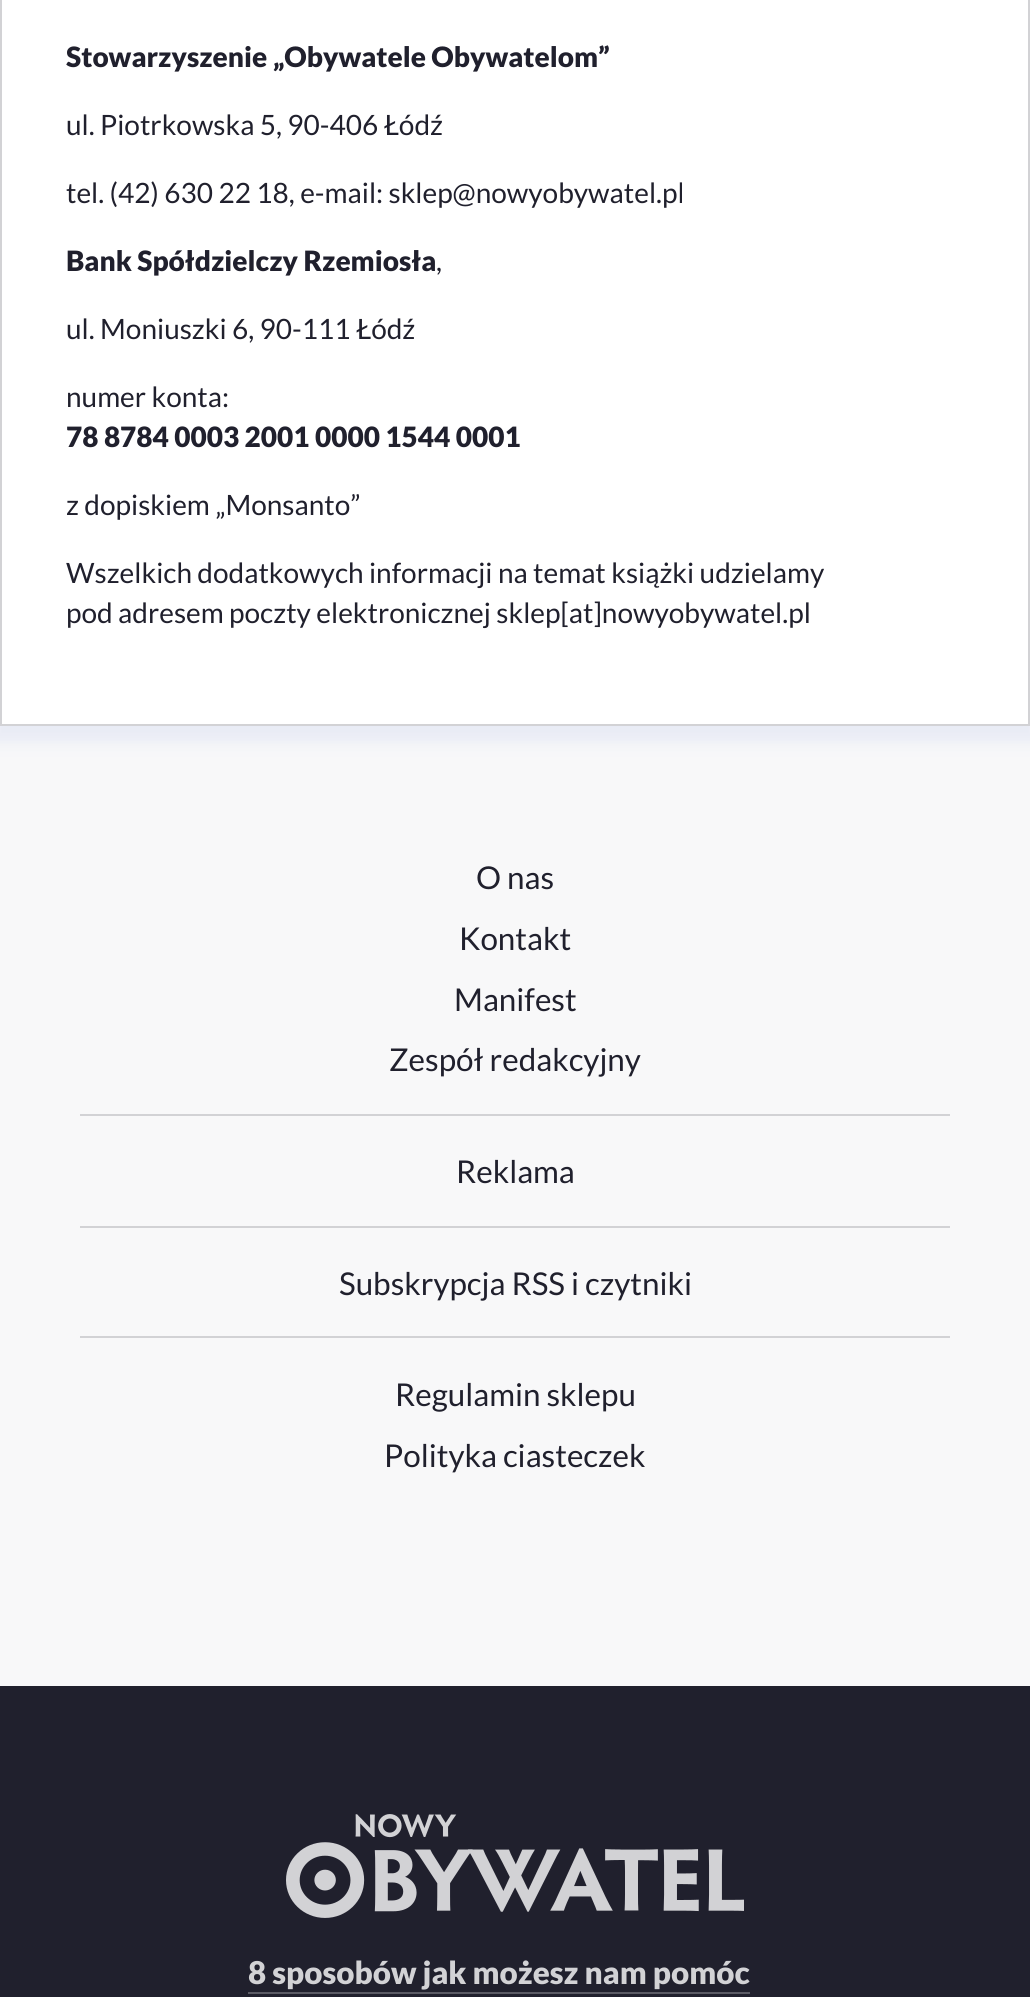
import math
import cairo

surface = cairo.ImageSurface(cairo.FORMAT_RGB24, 1030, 1997)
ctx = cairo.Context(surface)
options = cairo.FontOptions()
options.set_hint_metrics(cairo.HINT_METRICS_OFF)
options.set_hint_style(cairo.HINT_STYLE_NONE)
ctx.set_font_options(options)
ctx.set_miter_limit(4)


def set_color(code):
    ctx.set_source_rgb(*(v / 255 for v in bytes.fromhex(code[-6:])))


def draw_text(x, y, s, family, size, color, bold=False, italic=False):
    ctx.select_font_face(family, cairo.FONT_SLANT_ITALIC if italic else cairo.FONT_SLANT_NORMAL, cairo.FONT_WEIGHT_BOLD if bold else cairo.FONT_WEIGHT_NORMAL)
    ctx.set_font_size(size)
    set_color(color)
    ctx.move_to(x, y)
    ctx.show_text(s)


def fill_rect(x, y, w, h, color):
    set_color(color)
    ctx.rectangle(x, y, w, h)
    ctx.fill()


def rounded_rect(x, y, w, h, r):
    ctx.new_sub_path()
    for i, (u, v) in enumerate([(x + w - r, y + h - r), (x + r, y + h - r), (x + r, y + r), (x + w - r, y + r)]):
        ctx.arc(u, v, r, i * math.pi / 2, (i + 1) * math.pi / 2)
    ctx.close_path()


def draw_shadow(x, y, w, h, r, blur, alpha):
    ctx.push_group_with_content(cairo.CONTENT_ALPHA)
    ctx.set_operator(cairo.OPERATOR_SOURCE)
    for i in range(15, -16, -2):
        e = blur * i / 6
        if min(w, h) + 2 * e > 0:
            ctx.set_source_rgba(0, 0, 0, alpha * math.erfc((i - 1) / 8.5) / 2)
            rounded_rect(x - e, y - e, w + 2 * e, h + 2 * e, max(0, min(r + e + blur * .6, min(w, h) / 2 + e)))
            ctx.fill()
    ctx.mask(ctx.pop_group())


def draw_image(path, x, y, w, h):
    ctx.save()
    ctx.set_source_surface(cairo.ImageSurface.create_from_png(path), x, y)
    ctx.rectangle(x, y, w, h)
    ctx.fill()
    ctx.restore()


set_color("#f8f8f9")
ctx.paint()
set_color("#e8ebf5")
draw_shadow(-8, -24, 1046, 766, 0, 8, 1)
fill_rect(2, 0, 1026, 724, "#ffffff")
set_color("#d2d2d5")
ctx.new_path()
ctx.move_to(1030, -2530)
ctx.line_to(1030, 726)
ctx.line_to(1028, 724)
ctx.line_to(1028, -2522)
ctx.close_path()
ctx.fill()
fill_rect(0, 724, 1030, 2, "#d2d2d5")
ctx.new_path()
ctx.move_to(0, 726)
ctx.line_to(0, -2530)
ctx.line_to(2, -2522)
ctx.line_to(2, 724)
ctx.close_path()
ctx.fill()
draw_text(66, 67, "Stowarzyszenie „Obywatele Obywatelom”", "Lato Black", 28, "#20202d")
draw_text(66, 135, "ul. Piotrkowska 5, 90-406 Łódź", "Lato", 28, "#20202d")
draw_text(66, 203, "tel. (42) 630 22 18, e-mail: sklep@nowyobywatel.pl", "Lato", 28, "#20202d")
draw_text(66, 271, "Bank Spółdzielczy Rzemiosła", "Lato Black", 28, "#20202d")
draw_text(436, 271, ",", "Lato", 28, "#20202d")
draw_text(66, 339, "ul. Moniuszki 6, 90-111 Łódź", "Lato", 28, "#20202d")
draw_text(66, 407, "numer konta:", "Lato", 28, "#20202d")
draw_text(66, 447, "78 8784 0003 2001 0000 1544 0001", "Lato Black", 28, "#20202d")
draw_text(66, 515, "z dopiskiem „Monsanto”", "Lato", 28, "#20202d")
draw_text(66, 583, "Wszelkich dodatkowych informacji na temat książki udzielamy", "Lato", 28, "#20202d")
draw_text(66, 623, "pod adresem poczty elektronicznej sklep[at]nowyobywatel.pl", "Lato", 28, "#20202d")
draw_text(476, 889, "O nas", "Lato", 31.4, "#20202d")
draw_text(459, 950, "Kontakt", "Lato", 31.4, "#20202d")
draw_text(454, 1011, "Manifest", "Lato", 31.4, "#20202d")
draw_text(389, 1071, "Zespół redakcyjny", "Lato", 31.4, "#20202d")
fill_rect(80, 1114, 870, 2, "#d2d2d5")
draw_text(456, 1183, "Reklama", "Lato", 31.4, "#20202d")
fill_rect(80, 1226, 870, 2, "#d2d2d5")
draw_text(339, 1295, "Subskrypcja RSS i czytniki", "Lato", 31.4, "#20202d")
fill_rect(80, 1336, 870, 2, "#d2d2d5")
draw_text(395, 1406, "Regulamin sklepu", "Lato", 31.4, "#20202d")
draw_text(384, 1467, "Polityka ciasteczek", "Lato", 31.4, "#20202d")
fill_rect(0, 1686, 1030, 311, "#20202d")
draw_image("assets/img1.png", 286, 1814, 458, 104)
draw_text(248, 1984, "8 sposobów jak możesz nam pomóc", "Lato Black", 31.4, "#d2d2d5")
fill_rect(248, 1992, 502, 2, "#5b5b65")
surface.write_to_png("output.png")
